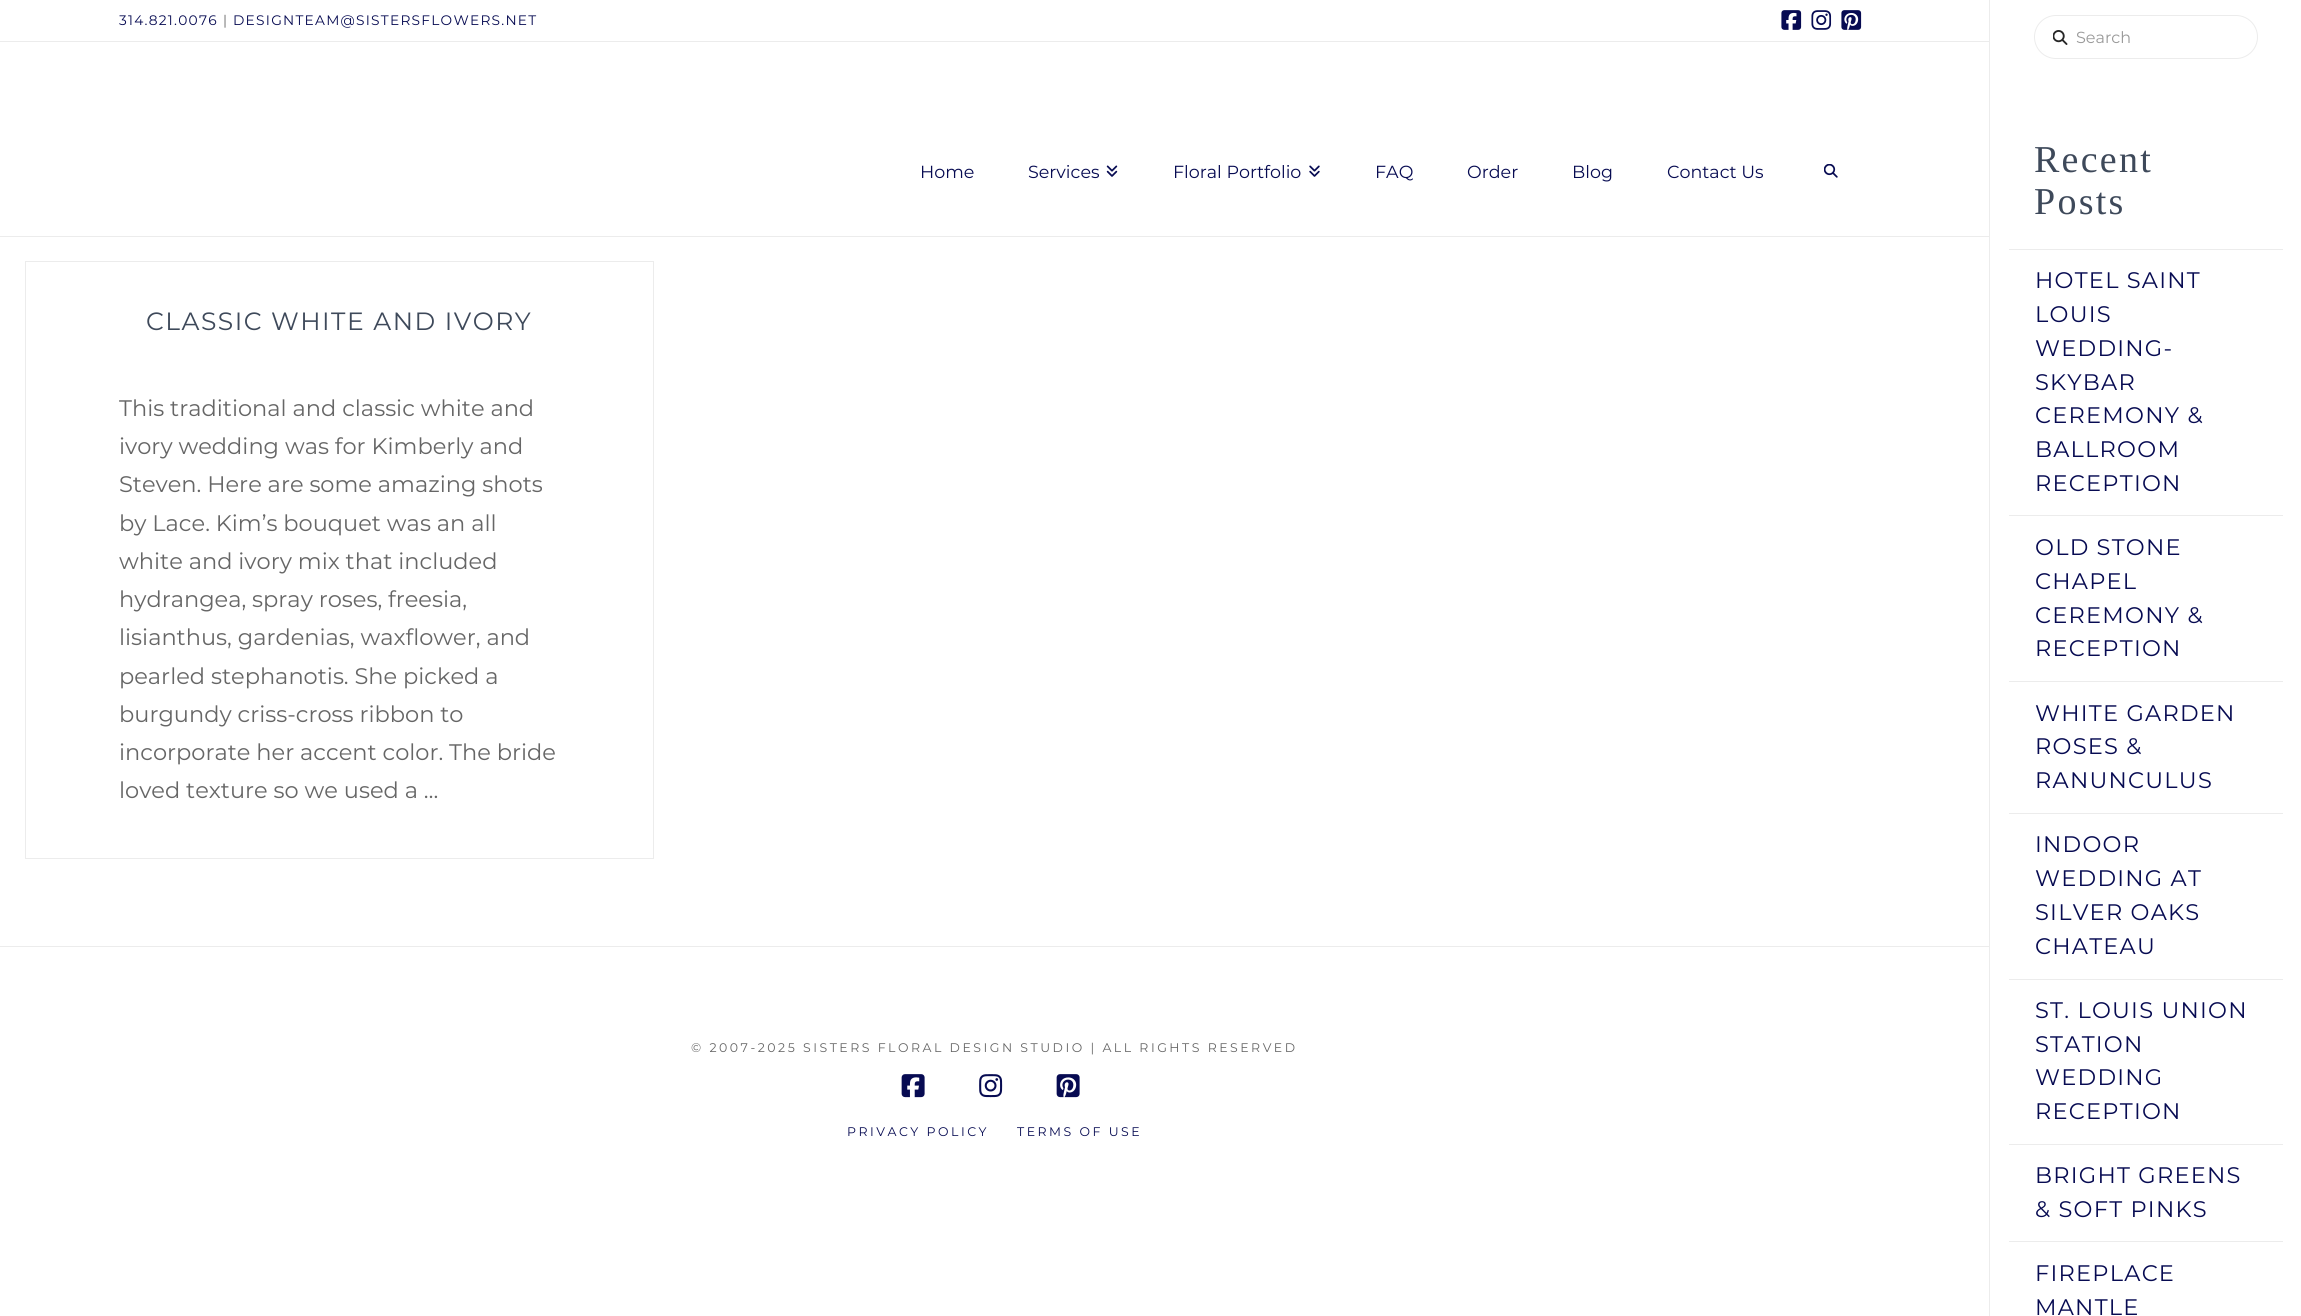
import math
import cairo

surface = cairo.ImageSurface(cairo.FORMAT_RGB24, 2301, 1316)
ctx = cairo.Context(surface)
options = cairo.FontOptions()
options.set_hint_metrics(cairo.HINT_METRICS_OFF)
options.set_hint_style(cairo.HINT_STYLE_NONE)
ctx.set_font_options(options)
ctx.set_miter_limit(4)


def set_color(code):
    ctx.set_source_rgb(*(v / 255 for v in bytes.fromhex(code[-6:])))


def draw_text(x, y, s, family, size, color, bold=False, italic=False):
    ctx.select_font_face(family, cairo.FONT_SLANT_ITALIC if italic else cairo.FONT_SLANT_NORMAL, cairo.FONT_WEIGHT_BOLD if bold else cairo.FONT_WEIGHT_NORMAL)
    ctx.set_font_size(size)
    set_color(color)
    ctx.move_to(x, y)
    ctx.show_text(s)


def draw_spaced(x, y, s, letter, word):
    ctx.move_to(x, y)
    for ch in s:
        ctx.show_text(ch)
        ctx.rel_move_to(letter + word * (ch == ' '), 0)


def fill_rect(x, y, w, h, color):
    set_color(color)
    ctx.rectangle(x, y, w, h)
    ctx.fill()


def rounded_rect(x, y, w, h, r):
    ctx.new_sub_path()
    for i, (u, v) in enumerate([(x + w - r, y + h - r), (x + r, y + h - r), (x + r, y + r), (x + w - r, y + r)]):
        ctx.arc(u, v, r, i * math.pi / 2, (i + 1) * math.pi / 2)
    ctx.close_path()


def draw_image(path, x, y, w, h):
    ctx.save()
    ctx.set_source_surface(cairo.ImageSurface.create_from_png(path), x, y)
    ctx.rectangle(x, y, w, h)
    ctx.fill()
    ctx.restore()


set_color("#ffffff")
ctx.paint()
fill_rect(0, 41, 1989, 1, "#ececec")
ctx.select_font_face("Montserrat")
ctx.set_font_size(13.75)
set_color("#070b52")
draw_spaced(119, 25, "314.821.0076", 1.25, 0)
set_color("#666666")
draw_spaced(223, 25, "|", 1.25, 0)
set_color("#070b52")
draw_spaced(233, 25, "DESIGNTEAM@SISTERSFLOWERS.NET", 1.25, 0)
draw_image("assets/img1.png", 1781, 10, 21, 20)
draw_image("assets/img2.png", 1811, 10, 21, 20)
draw_image("assets/img3.png", 1841, 10, 21, 20)
fill_rect(0, 236, 1989, 1, "#ececec")
draw_text(920, 178, "Home", "Montserrat", 17.5, "#070b52")
draw_text(1028, 178, "Services", "Montserrat", 17.5, "#070b52")
draw_image("assets/img4.png", 1106, 165, 12, 12)
draw_text(1173, 178, "Floral Portfolio", "Montserrat", 17.5, "#070b52")
draw_image("assets/img5.png", 1309, 165, 11, 12)
draw_text(1375, 178, "FAQ", "Montserrat", 17.5, "#070b52")
draw_text(1467, 178, "Order", "Montserrat", 17.5, "#070b52")
draw_text(1572, 178, "Blog", "Montserrat", 17.5, "#070b52")
draw_text(1667, 178, "Contact Us", "Montserrat", 17.5, "#070b52")
draw_image("assets/img6.png", 1824, 164, 14, 14)
fill_rect(1989, 0, 1, 1316, "#ececec")
rounded_rect(2034.5, 15.5, 223, 43, 21.5)
ctx.set_line_width(1)
ctx.stroke()
draw_image("assets/img7.png", 2053, 30, 15, 15)
draw_text(2076, 43, "Search", "Montserrat", 16, "#999999")
ctx.select_font_face("Liberation Serif")
ctx.set_font_size(38)
set_color("#3e495a")
draw_spaced(2034, 172, "Recent", 2.25, 0)
draw_spaced(2034, 214, "Posts", 2.25, 0)
fill_rect(2009, 249, 274, 1, "#ececec")
fill_rect(2009, 515, 274, 1, "#ececec")
ctx.select_font_face("Montserrat")
ctx.set_font_size(22.5)
set_color("#070b52")
draw_spaced(2035, 288, "HOTEL SAINT", 1.25, 0)
draw_spaced(2035, 322, "LOUIS", 1.25, 0)
draw_spaced(2035, 356, "WEDDING-", 1.25, 0)
draw_spaced(2035, 390, "SKYBAR", 1.25, 0)
draw_spaced(2035, 423, "CEREMONY &", 1.25, 0)
draw_spaced(2035, 457, "BALLROOM", 1.25, 0)
draw_spaced(2035, 491, "RECEPTION", 1.25, 0)
fill_rect(2009, 681, 274, 1, "#ececec")
set_color("#070b52")
draw_spaced(2035, 555, "OLD STONE", 1.25, 0)
draw_spaced(2035, 589, "CHAPEL", 1.25, 0)
draw_spaced(2035, 623, "CEREMONY &", 1.25, 0)
draw_spaced(2035, 656, "RECEPTION", 1.25, 0)
fill_rect(2009, 813, 274, 1, "#ececec")
set_color("#070b52")
draw_spaced(2035, 721, "WHITE GARDEN", 1.25, 0)
draw_spaced(2035, 754, "ROSES &", 1.25, 0)
draw_spaced(2035, 788, "RANUNCULUS", 1.25, 0)
fill_rect(2009, 979, 274, 1, "#ececec")
set_color("#070b52")
draw_spaced(2035, 852, "INDOOR", 1.25, 0)
draw_spaced(2035, 886, "WEDDING AT", 1.25, 0)
draw_spaced(2035, 920, "SILVER OAKS", 1.25, 0)
draw_spaced(2035, 954, "CHATEAU", 1.25, 0)
fill_rect(2009, 1144, 274, 1, "#ececec")
set_color("#070b52")
draw_spaced(2035, 1018, "ST. LOUIS UNION", 1.25, 0)
draw_spaced(2035, 1052, "STATION", 1.25, 0)
draw_spaced(2035, 1085, "WEDDING", 1.25, 0)
draw_spaced(2035, 1119, "RECEPTION", 1.25, 0)
fill_rect(2009, 1241, 274, 1, "#ececec")
set_color("#070b52")
draw_spaced(2035, 1183, "BRIGHT GREENS", 1.25, 0)
draw_spaced(2035, 1217, "& SOFT PINKS", 1.25, 0)
draw_spaced(2035, 1281, "FIREPLACE", 1.25, 0)
draw_spaced(2035, 1315, "MANTLE", 1.25, 0)
ctx.rectangle(25.5, 261.5, 628, 597)
set_color("#ececec")
ctx.stroke()
ctx.set_font_size(25)
set_color("#3e495a")
draw_spaced(146, 330, "CLASSIC WHITE AND IVORY", 1.5, 0)
draw_text(119, 416, "This traditional and classic white and", "Montserrat", 22.5, "#666666")
draw_text(119, 454, "ivory wedding was for Kimberly and", "Montserrat", 22.5, "#666666")
draw_text(119, 492, "Steven. Here are some amazing shots", "Montserrat", 22.5, "#666666")
draw_text(119, 531, "by Lace. Kim’s bouquet was an all", "Montserrat", 22.5, "#666666")
draw_text(119, 569, "white and ivory mix that included", "Montserrat", 22.5, "#666666")
draw_text(119, 607, "hydrangea, spray roses, freesia,", "Montserrat", 22.5, "#666666")
draw_text(119, 645, "lisianthus, gardenias, waxflower, and", "Montserrat", 22.5, "#666666")
draw_text(119, 684, "pearled stephanotis. She picked a", "Montserrat", 22.5, "#666666")
draw_text(119, 722, "burgundy criss-cross ribbon to", "Montserrat", 22.5, "#666666")
draw_text(119, 760, "incorporate her accent color. The bride", "Montserrat", 22.5, "#666666")
draw_text(119, 798, "loved texture so we used a …", "Montserrat", 22.5, "#666666")
fill_rect(0, 946, 1989, 1, "#ececec")
ctx.set_font_size(12.5)
set_color("#666666")
draw_spaced(691, 1052, "© 2007-2025 SISTERS FLORAL DESIGN STUDIO | ALL RIGHTS RESERVED", 2.5, 0)
draw_image("assets/img8.png", 901, 1074, 24, 24)
draw_image("assets/img9.png", 979, 1074, 24, 24)
draw_image("assets/img10.png", 1056, 1074, 24, 24)
set_color("#070b52")
draw_spaced(847, 1136, "PRIVACY POLICY", 2.5, 0)
draw_spaced(1017, 1136, "TERMS OF USE", 2.5, 0)
surface.write_to_png("output.png")
